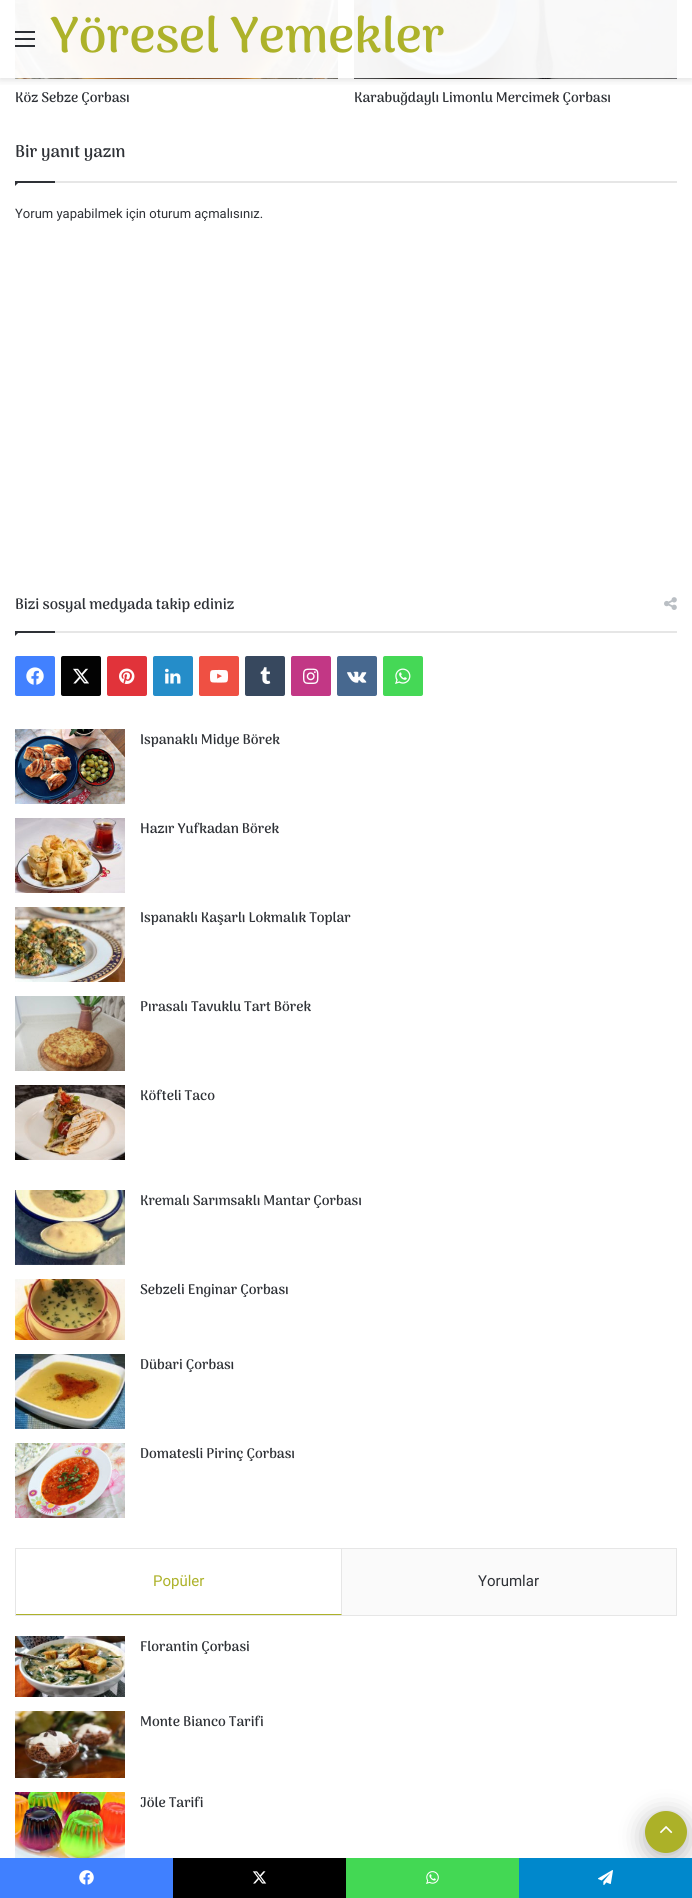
import math
import cairo

surface = cairo.ImageSurface(cairo.FORMAT_RGB24, 692, 1898)
ctx = cairo.Context(surface)
options = cairo.FontOptions()
options.set_hint_metrics(cairo.HINT_METRICS_OFF)
options.set_hint_style(cairo.HINT_STYLE_NONE)
ctx.set_font_options(options)
ctx.set_miter_limit(4)


def set_color(code):
    ctx.set_source_rgb(*(v / 255 for v in bytes.fromhex(code[-6:])))


def draw_text(x, y, s, family, size, color, bold=False, italic=False):
    ctx.select_font_face(family, cairo.FONT_SLANT_ITALIC if italic else cairo.FONT_SLANT_NORMAL, cairo.FONT_WEIGHT_BOLD if bold else cairo.FONT_WEIGHT_NORMAL)
    ctx.set_font_size(size)
    set_color(color)
    ctx.move_to(x, y)
    ctx.show_text(s)


def fill_rect(x, y, w, h, color):
    set_color(color)
    ctx.rectangle(x, y, w, h)
    ctx.fill()


def rounded_rect(x, y, w, h, r):
    ctx.new_sub_path()
    for i, (u, v) in enumerate([(x + w - r, y + h - r), (x + r, y + h - r), (x + r, y + r), (x + w - r, y + r)]):
        ctx.arc(u, v, r, i * math.pi / 2, (i + 1) * math.pi / 2)
    ctx.close_path()


def draw_shadow(x, y, w, h, r, blur, alpha):
    ctx.push_group_with_content(cairo.CONTENT_ALPHA)
    ctx.set_operator(cairo.OPERATOR_SOURCE)
    for i in range(15, -16, -2):
        e = blur * i / 6
        if min(w, h) + 2 * e > 0:
            ctx.set_source_rgba(0, 0, 0, alpha * math.erfc((i - 1) / 8.5) / 2)
            rounded_rect(x - e, y - e, w + 2 * e, h + 2 * e, max(0, min(r + e + blur * .6, min(w, h) / 2 + e)))
            ctx.fill()
    ctx.mask(ctx.pop_group())


def draw_image(path, x, y, w, h):
    ctx.save()
    ctx.set_source_surface(cairo.ImageSurface.create_from_png(path), x, y)
    ctx.rectangle(x, y, w, h)
    ctx.fill()
    ctx.restore()


set_color("#ffffff")
ctx.paint()
draw_image("assets/img1.png", 15, 0, 323, 79)
draw_image("assets/img2.png", 354, 0, 323, 79)
ctx.save()
ctx.rectangle(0, 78, 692, 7)
ctx.clip()
set_color("#636363")
draw_shadow(0, 2, 692, 78, 0, 4, 0.2)
ctx.restore()
fill_rect(15, 38, 20, 2, "#2c2f34")
fill_rect(15, 31, 20, 2, "#2c2f34")
fill_rect(15, 45, 20, 2, "#2c2f34")
draw_text(50, 52, "Yöresel Yemekler", "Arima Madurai", 50, "#adb22a", bold=True)
draw_text(15, 102, "Köz Sebze Çorbası", "Arima Madurai", 14, "#2e3136", bold=True)
draw_text(354, 102, "Karabuğdaylı Limonlu Mercimek Çorbası", "Arima Madurai", 14, "#2e3136", bold=True)
fill_rect(55, 181, 622, 2, "#e6e6e6")
draw_text(15, 157, "Bir yanıt yazın", "Arima Madurai", 17, "#2e3136", bold=True)
ctx.new_path()
ctx.move_to(15, 181)
ctx.line_to(20, 181)
ctx.line_to(15, 186)
ctx.close_path()
ctx.fill()
fill_rect(15, 181, 40, 2, "#2e3136")
draw_text(15, 218, "Yorum yapabilmek için oturum açmalısınız.", "Roboto", 13, "#2e3136")
fill_rect(55, 631, 622, 2, "#e6e6e6")
draw_text(15, 609, "Bizi sosyal medyada takip ediniz", "Arima Madurai", 15, "#2e3136", bold=True)
draw_image("assets/img3.png", 664, 597, 13, 13)
ctx.new_path()
ctx.move_to(15, 631)
ctx.line_to(20, 631)
ctx.line_to(15, 636)
ctx.close_path()
ctx.fill()
fill_rect(15, 631, 40, 2, "#2e3136")
set_color("#4281ff")
rounded_rect(15, 656, 40, 40, 2)
ctx.fill()
draw_image("assets/img4.png", 26, 667, 18, 18)
set_color("#030303")
rounded_rect(61, 656, 40, 40, 2)
ctx.fill()
draw_image("assets/img5.png", 73, 668, 16, 16)
set_color("#e1333a")
rounded_rect(107, 656, 40, 40, 2)
ctx.fill()
draw_image("assets/img6.png", 119, 668, 16, 16)
set_color("#258dc9")
rounded_rect(153, 656, 40, 40, 2)
ctx.fill()
draw_image("assets/img7.png", 165, 668, 16, 16)
set_color("#ef5043")
rounded_rect(199, 656, 40, 40, 2)
ctx.fill()
draw_image("assets/img8.png", 210, 669, 18, 14)
set_color("#37485e")
rounded_rect(245, 656, 40, 40, 2)
ctx.fill()
draw_image("assets/img9.png", 260, 667, 11, 17)
set_color("#c23785")
rounded_rect(291, 656, 40, 40, 2)
ctx.fill()
draw_image("assets/img10.png", 303, 668, 16, 16)
set_color("#47688f")
rounded_rect(337, 656, 40, 40, 2)
ctx.fill()
draw_image("assets/img11.png", 347, 671, 20, 12)
set_color("#45d856")
rounded_rect(383, 656, 40, 40, 2)
ctx.fill()
draw_image("assets/img12.png", 395, 668, 16, 16)
draw_image("assets/img13.png", 15, 729, 110, 75)
draw_text(140, 744, "Ispanaklı Midye Börek", "Arima Madurai", 14, "#2e3136", bold=True)
draw_image("assets/img14.png", 15, 818, 110, 75)
draw_text(140, 833, "Hazır Yufkadan Börek", "Arima Madurai", 14, "#2e3136", bold=True)
draw_image("assets/img15.png", 15, 907, 110, 75)
draw_text(140, 922, "Ispanaklı Kaşarlı Lokmalık Toplar", "Arima Madurai", 14, "#2e3136", bold=True)
draw_image("assets/img16.png", 15, 996, 110, 75)
draw_text(140, 1011, "Pırasalı Tavuklu Tart Börek", "Arima Madurai", 14, "#2e3136", bold=True)
draw_image("assets/img17.png", 15, 1085, 110, 75)
draw_text(140, 1100, "Köfteli Taco", "Arima Madurai", 14, "#2e3136", bold=True)
draw_image("assets/img18.png", 15, 1190, 110, 75)
draw_text(140, 1205, "Kremalı Sarımsaklı Mantar Çorbası", "Arima Madurai", 14, "#2e3136", bold=True)
draw_image("assets/img19.png", 15, 1279, 110, 61)
draw_text(140, 1294, "Sebzeli Enginar Çorbası", "Arima Madurai", 14, "#2e3136", bold=True)
draw_image("assets/img20.png", 15, 1354, 110, 75)
draw_text(140, 1369, "Dübari Çorbası", "Arima Madurai", 14, "#2e3136", bold=True)
draw_image("assets/img21.png", 15, 1443, 110, 75)
draw_text(140, 1458, "Domatesli Pirinç Çorbası", "Arima Madurai", 14, "#2e3136", bold=True)
ctx.rectangle(15.5, 1548.5, 661, 67)
set_color("#e6e6e6")
ctx.set_line_width(1)
ctx.stroke()
ctx.new_path()
ctx.move_to(342, 1549)
ctx.line_to(342, 1615)
ctx.line_to(341, 1614)
ctx.line_to(341, 1549)
ctx.close_path()
ctx.fill()
set_color("#adb22a")
ctx.new_path()
ctx.move_to(342, 1615)
ctx.line_to(16, 1615)
ctx.line_to(16, 1614)
ctx.line_to(341, 1614)
ctx.close_path()
ctx.fill()
draw_text(153, 1586, "Popüler", "Roboto", 15, "#adb22a")
fill_rect(342, 1549, 334, 66, "#fafafa")
draw_text(478, 1586, "Yorumlar", "Roboto", 15, "#2e3136")
draw_image("assets/img22.png", 15, 1636, 110, 61)
draw_text(140, 1651, "Florantin Çorbasi", "Arima Madurai", 14, "#2e3136", bold=True)
draw_image("assets/img23.png", 15, 1711, 110, 67)
draw_text(140, 1726, "Monte Bianco Tarifi", "Arima Madurai", 14, "#2e3136", bold=True)
draw_image("assets/img24.png", 15, 1792, 110, 66)
draw_text(140, 1807, "Jöle Tarifi", "Arima Madurai", 14, "#2e3136", bold=True)
set_color("#000000")
draw_shadow(645, 1816, 42, 42, 21, 12.5, 0.3)
set_color("#acb128")
ctx.arc(666, 1832, 21, 0, 2 * math.pi)
ctx.fill()
draw_image("assets/img25.png", 660, 1826, 13, 8)
fill_rect(0, 1858, 173, 40, "#4080ff")
draw_image("assets/img26.png", 79, 1870, 15, 15)
fill_rect(173, 1858, 173, 40, "#000000")
draw_image("assets/img27.png", 252, 1871, 15, 13)
fill_rect(346, 1858, 173, 40, "#43d854")
draw_image("assets/img28.png", 426, 1871, 13, 13)
fill_rect(519, 1858, 173, 40, "#0088cc")
draw_image("assets/img29.png", 598, 1870, 15, 15)
surface.write_to_png("output.png")
